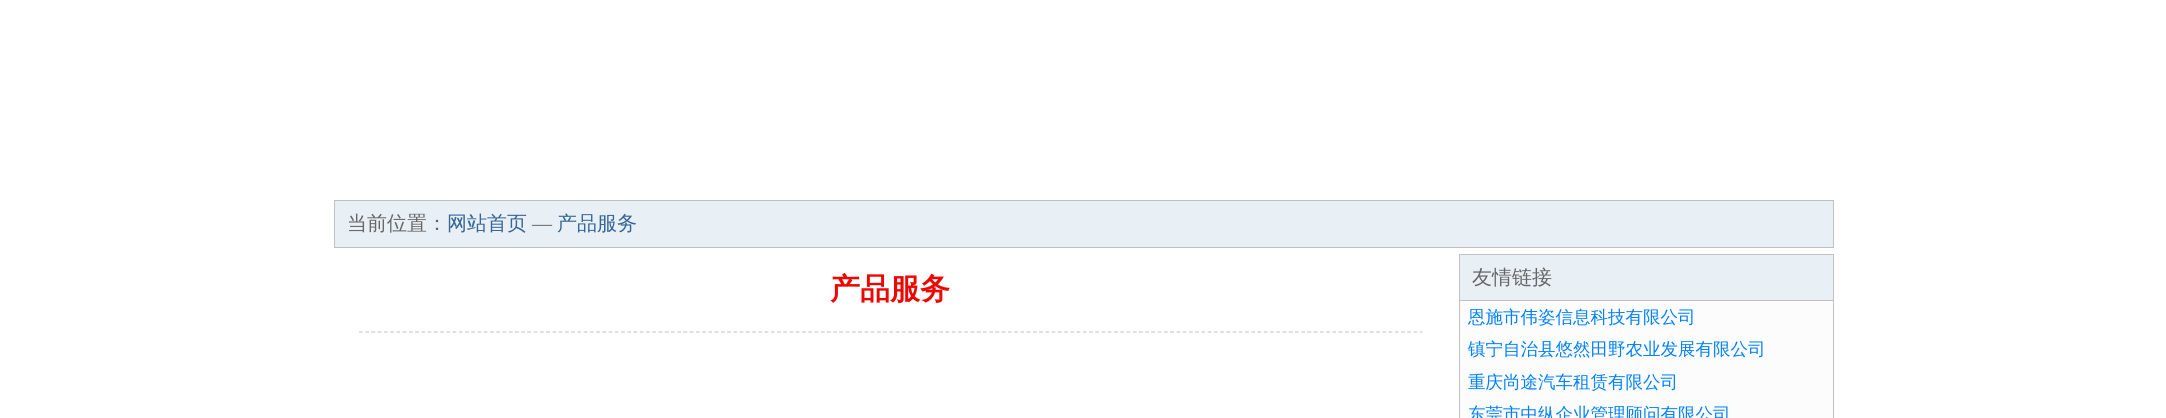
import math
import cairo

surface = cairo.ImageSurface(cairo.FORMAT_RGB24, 2166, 418)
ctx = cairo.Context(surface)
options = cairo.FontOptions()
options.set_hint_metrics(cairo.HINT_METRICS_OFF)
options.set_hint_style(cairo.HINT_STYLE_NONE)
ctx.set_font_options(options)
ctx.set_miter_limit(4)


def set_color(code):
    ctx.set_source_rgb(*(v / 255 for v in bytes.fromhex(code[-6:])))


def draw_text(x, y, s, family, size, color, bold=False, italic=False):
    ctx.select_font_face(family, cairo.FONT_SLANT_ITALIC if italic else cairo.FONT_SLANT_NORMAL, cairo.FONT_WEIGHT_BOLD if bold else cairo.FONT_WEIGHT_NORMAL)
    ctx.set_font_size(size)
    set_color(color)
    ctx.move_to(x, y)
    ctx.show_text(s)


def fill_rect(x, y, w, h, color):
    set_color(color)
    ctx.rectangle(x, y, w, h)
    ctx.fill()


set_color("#ffffff")
ctx.paint()
set_color("#e8eff5")
ctx.rectangle(334.5, 200.5, 1499, 47)
ctx.fill_preserve()
set_color("#c0c0c0")
ctx.set_line_width(1)
ctx.stroke()
draw_text(347, 230, "当前位置：", "WenQuanYi Zen Hei Medium", 20, "#666666")
draw_text(447, 230, "网站首页", "WenQuanYi Zen Hei Medium", 20, "#336699")
draw_text(532, 230, "—", "Liberation Serif", 20, "#666666")
draw_text(557, 230, "产品服务", "WenQuanYi Zen Hei Medium", 20, "#336699")
draw_text(830, 299, "产品服务", "WenQuanYi Zen Hei", 30, "#ee0700", bold=True)
ctx.new_path()
ctx.move_to(359, 332)
ctx.line_to(1422.5, 332)
set_color("#cccccc")
ctx.set_line_width(1.2)
ctx.set_dash([3.75, 2.49])
ctx.stroke()
fill_rect(1460, 301, 373, 117, "#fcfcfc")
ctx.rectangle(1459.5, 254.5, 374, 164)
set_color("#c0c0c0")
ctx.set_line_width(1)
ctx.set_dash([])
ctx.stroke()
fill_rect(1460, 255, 373, 45, "#e8eff5")
fill_rect(1460, 300, 373, 1, "#c0c0c0")
draw_text(1472, 284, "友情链接", "WenQuanYi Zen Hei Medium", 20, "#666666")
draw_text(1468, 323, "恩施市伟姿信息科技有限公司", "WenQuanYi Zen Hei Medium", 17.5, "#0080ff")
draw_text(1468, 355, "镇宁自治县悠然田野农业发展有限公司", "WenQuanYi Zen Hei Medium", 17.5, "#0080ff")
draw_text(1468, 388, "重庆尚途汽车租赁有限公司", "WenQuanYi Zen Hei Medium", 17.5, "#0080ff")
draw_text(1468, 420, "东莞市中纵企业管理顾问有限公司", "WenQuanYi Zen Hei Medium", 17.5, "#0080ff")
surface.write_to_png("output.png")
